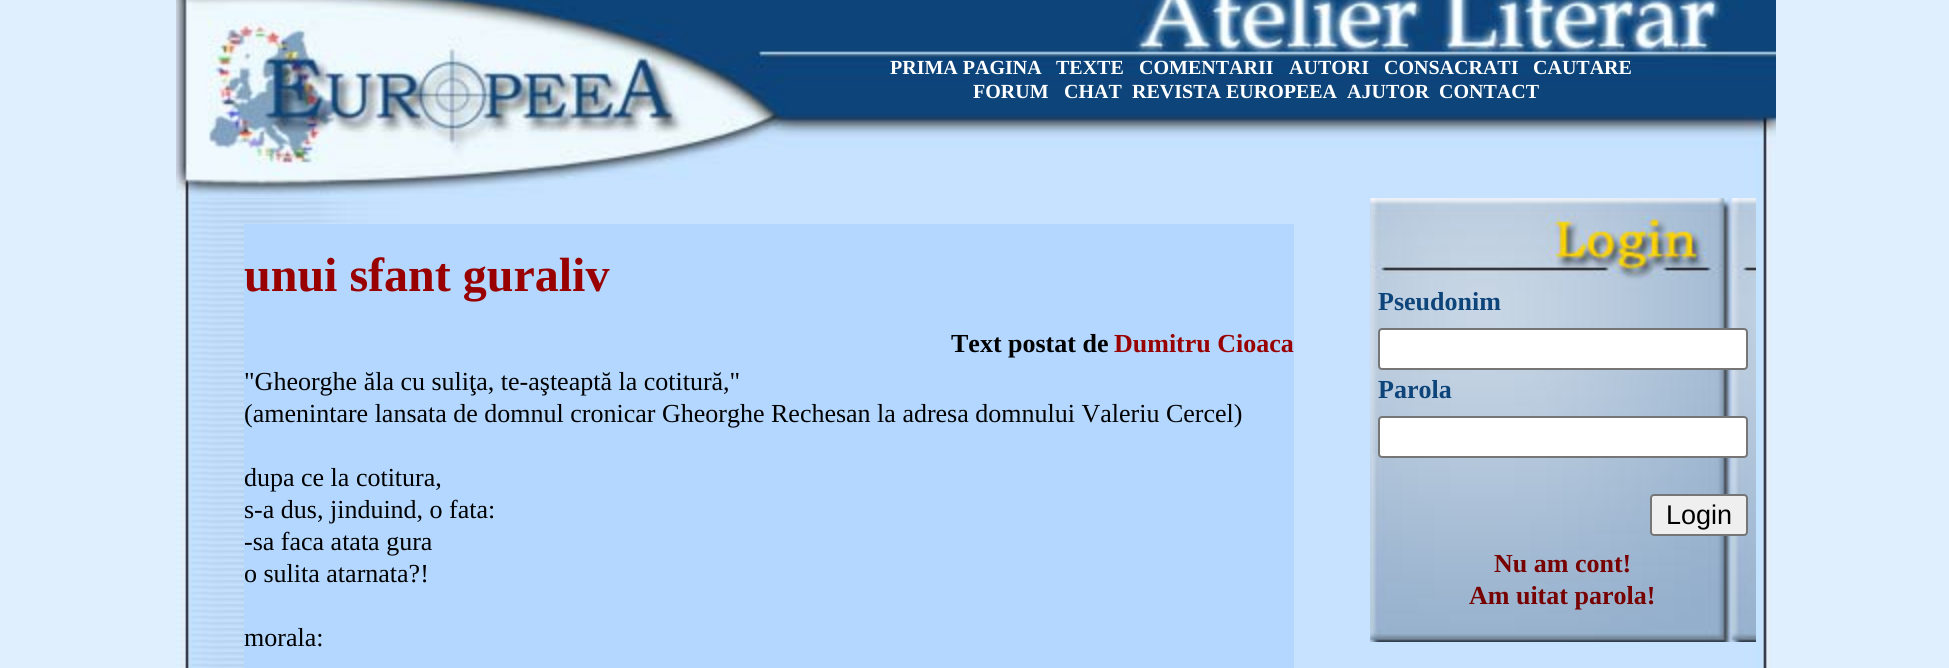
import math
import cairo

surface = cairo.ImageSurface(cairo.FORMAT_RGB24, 1949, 668)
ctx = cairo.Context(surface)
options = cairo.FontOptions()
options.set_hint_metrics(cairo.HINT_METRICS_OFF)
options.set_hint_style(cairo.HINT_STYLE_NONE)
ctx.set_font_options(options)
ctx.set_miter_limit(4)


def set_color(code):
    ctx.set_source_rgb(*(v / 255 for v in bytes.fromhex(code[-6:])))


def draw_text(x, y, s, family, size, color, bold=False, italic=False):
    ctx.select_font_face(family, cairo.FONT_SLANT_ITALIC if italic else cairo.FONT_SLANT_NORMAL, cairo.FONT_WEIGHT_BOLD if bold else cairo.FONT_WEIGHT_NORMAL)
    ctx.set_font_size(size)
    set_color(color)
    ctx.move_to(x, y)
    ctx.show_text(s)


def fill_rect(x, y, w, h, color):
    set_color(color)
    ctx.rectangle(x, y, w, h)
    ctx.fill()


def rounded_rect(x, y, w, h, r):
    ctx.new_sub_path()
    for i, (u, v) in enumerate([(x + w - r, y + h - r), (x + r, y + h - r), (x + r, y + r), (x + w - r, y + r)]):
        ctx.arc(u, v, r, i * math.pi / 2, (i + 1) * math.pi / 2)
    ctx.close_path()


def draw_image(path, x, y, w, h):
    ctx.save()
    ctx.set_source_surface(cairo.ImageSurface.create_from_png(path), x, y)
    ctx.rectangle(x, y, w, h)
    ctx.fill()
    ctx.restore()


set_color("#e0effe")
ctx.paint()
draw_image("assets/img1.png", 176, 198, 1595, 470)
draw_image("assets/img2.png", 176, 0, 1600, 198)
draw_text(890, 74, "PRIMA PAGINA", "Liberation Serif", 20, "#ffffff", bold=True)
draw_text(1056, 74, "TEXTE", "Liberation Serif", 20, "#ffffff", bold=True)
draw_text(1139, 74, "COMENTARII", "Liberation Serif", 20, "#ffffff", bold=True)
draw_text(1289, 74, "AUTORI", "Liberation Serif", 20, "#ffffff", bold=True)
draw_text(1384, 74, "CONSACRATI", "Liberation Serif", 20, "#ffffff", bold=True)
draw_text(1533, 74, "CAUTARE", "Liberation Serif", 20, "#ffffff", bold=True)
draw_text(973, 98, "FORUM", "Liberation Serif", 20, "#ffffff", bold=True)
draw_text(1064, 98, "CHAT", "Liberation Serif", 20, "#ffffff", bold=True)
draw_text(1132, 98, "REVISTA EUROPEEA", "Liberation Serif", 20, "#ffffff", bold=True)
draw_text(1347, 98, "AJUTOR", "Liberation Serif", 20, "#ffffff", bold=True)
draw_text(1439, 98, "CONTACT", "Liberation Serif", 20, "#ffffff", bold=True)
fill_rect(244, 224, 1050, 444, "#b3d7ff")
draw_text(244, 291, "unui sfant guraliv", "Liberation Serif", 48, "#990000", bold=True)
draw_text(951, 352, "Text postat de", "Liberation Serif", 26, "#000000", bold=True)
draw_text(1114, 352, "Dumitru Cioaca", "Liberation Serif", 26, "#990000", bold=True)
draw_text(244, 390, "\"Gheorghe ăla cu suliţa, te-aşteaptă la cotitură,\"", "Liberation Serif", 26, "#000000")
draw_text(244, 422, "(amenintare lansata de domnul cronicar Gheorghe Rechesan la adresa domnului Valeriu Cercel)", "Liberation Serif", 26, "#000000")
draw_text(244, 486, "dupa ce la cotitura,", "Liberation Serif", 26, "#000000")
draw_text(244, 518, "s-a dus, jinduind, o fata:", "Liberation Serif", 26, "#000000")
draw_text(244, 550, "-sa faca atata gura", "Liberation Serif", 26, "#000000")
draw_text(244, 582, "o sulita atarnata?!", "Liberation Serif", 26, "#000000")
draw_text(244, 646, "morala:", "Liberation Serif", 26, "#000000")
draw_image("assets/img3.png", 1370, 198, 386, 444)
draw_text(1378, 310, "Pseudonim", "Liberation Serif", 26, "#0d447a", bold=True)
set_color("#ffffff")
rounded_rect(1379, 329, 368, 40, 3)
ctx.fill_preserve()
set_color("#767676")
ctx.stroke()
draw_text(1378, 398, "Parola", "Liberation Serif", 26, "#0d447a", bold=True)
set_color("#ffffff")
rounded_rect(1379, 417, 368, 40, 3)
ctx.fill_preserve()
set_color("#767676")
ctx.stroke()
set_color("#efefef")
rounded_rect(1651, 495, 96, 40, 3)
ctx.fill_preserve()
set_color("#767676")
ctx.stroke()
draw_text(1666, 524, "Login", "Liberation Sans", 27, "#000000")
draw_text(1494, 572, "Nu am cont!", "Liberation Serif", 26, "#770000", bold=True)
draw_text(1469, 604, "Am uitat parola!", "Liberation Serif", 26, "#770000", bold=True)
surface.write_to_png("output.png")
